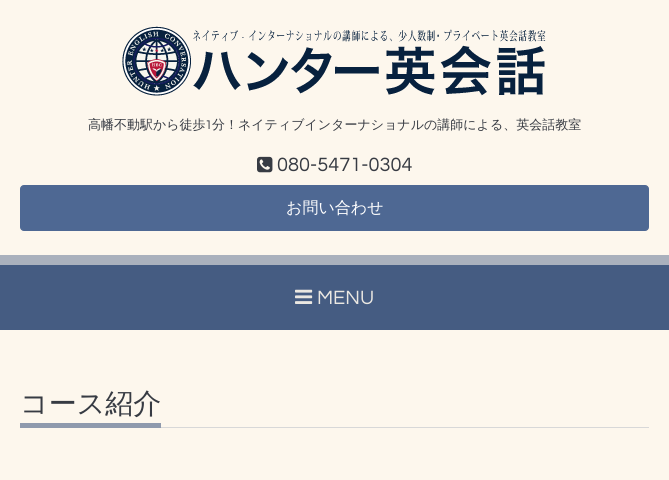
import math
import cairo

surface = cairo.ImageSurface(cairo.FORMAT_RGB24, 669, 480)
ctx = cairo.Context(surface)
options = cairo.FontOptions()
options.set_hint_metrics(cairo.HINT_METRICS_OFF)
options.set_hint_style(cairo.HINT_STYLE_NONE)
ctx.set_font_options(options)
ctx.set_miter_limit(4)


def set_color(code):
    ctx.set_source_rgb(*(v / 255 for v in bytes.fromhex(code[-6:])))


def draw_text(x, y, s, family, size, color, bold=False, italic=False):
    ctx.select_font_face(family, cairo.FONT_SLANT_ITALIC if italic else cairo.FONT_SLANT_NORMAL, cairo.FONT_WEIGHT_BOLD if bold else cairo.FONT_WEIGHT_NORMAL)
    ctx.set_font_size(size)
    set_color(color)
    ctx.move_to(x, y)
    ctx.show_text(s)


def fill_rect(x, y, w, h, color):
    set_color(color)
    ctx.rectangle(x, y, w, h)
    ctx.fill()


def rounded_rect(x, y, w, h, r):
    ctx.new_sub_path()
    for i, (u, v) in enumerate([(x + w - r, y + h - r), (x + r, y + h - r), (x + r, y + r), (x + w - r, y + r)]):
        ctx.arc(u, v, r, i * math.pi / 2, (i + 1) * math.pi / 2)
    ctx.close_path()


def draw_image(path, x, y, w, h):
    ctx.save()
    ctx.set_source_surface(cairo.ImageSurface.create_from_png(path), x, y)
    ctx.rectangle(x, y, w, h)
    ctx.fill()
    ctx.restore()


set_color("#fdf7ed")
ctx.paint()
draw_image("assets/img1.png", 122, 26, 424, 70)
draw_text(88, 129, "高幡不動駅から徒歩", "WenQuanYi Zen Hei Medium", 13, "#373b43")
draw_text(205, 129, "1", "Questrial", 13, "#373b43")
draw_text(212, 129, "分！ネイティブインターナショナルの講師による、英会話教室", "WenQuanYi Zen Hei Medium", 13, "#373b43")
draw_image("assets/img2.png", 257, 156, 16, 17)
draw_text(277, 171, "080-5471-0304", "Questrial", 20, "#373b43")
set_color("#4e6893")
rounded_rect(20.5, 185.5, 628, 45, 3.5)
ctx.fill_preserve()
ctx.set_line_width(1)
ctx.stroke()
draw_text(286, 213, "お問い合わせ", "WenQuanYi Zen Hei Medium", 16, "#ffffff")
fill_rect(0, 255, 669, 10, "#aab1bd")
fill_rect(0, 265, 669, 65, "#455c82")
draw_image("assets/img3.png", 295, 289, 18, 15)
draw_text(317, 304, "MENU", "Questrial", 20, "#ebe8e2")
fill_rect(161, 427, 488, 1, "#d8d8d8")
fill_rect(20, 423, 141, 5, "#8f9aad")
draw_text(20, 413, "コース紹介", "WenQuanYi Zen Hei Medium", 28, "#373b43")
surface.write_to_png("output.png")
